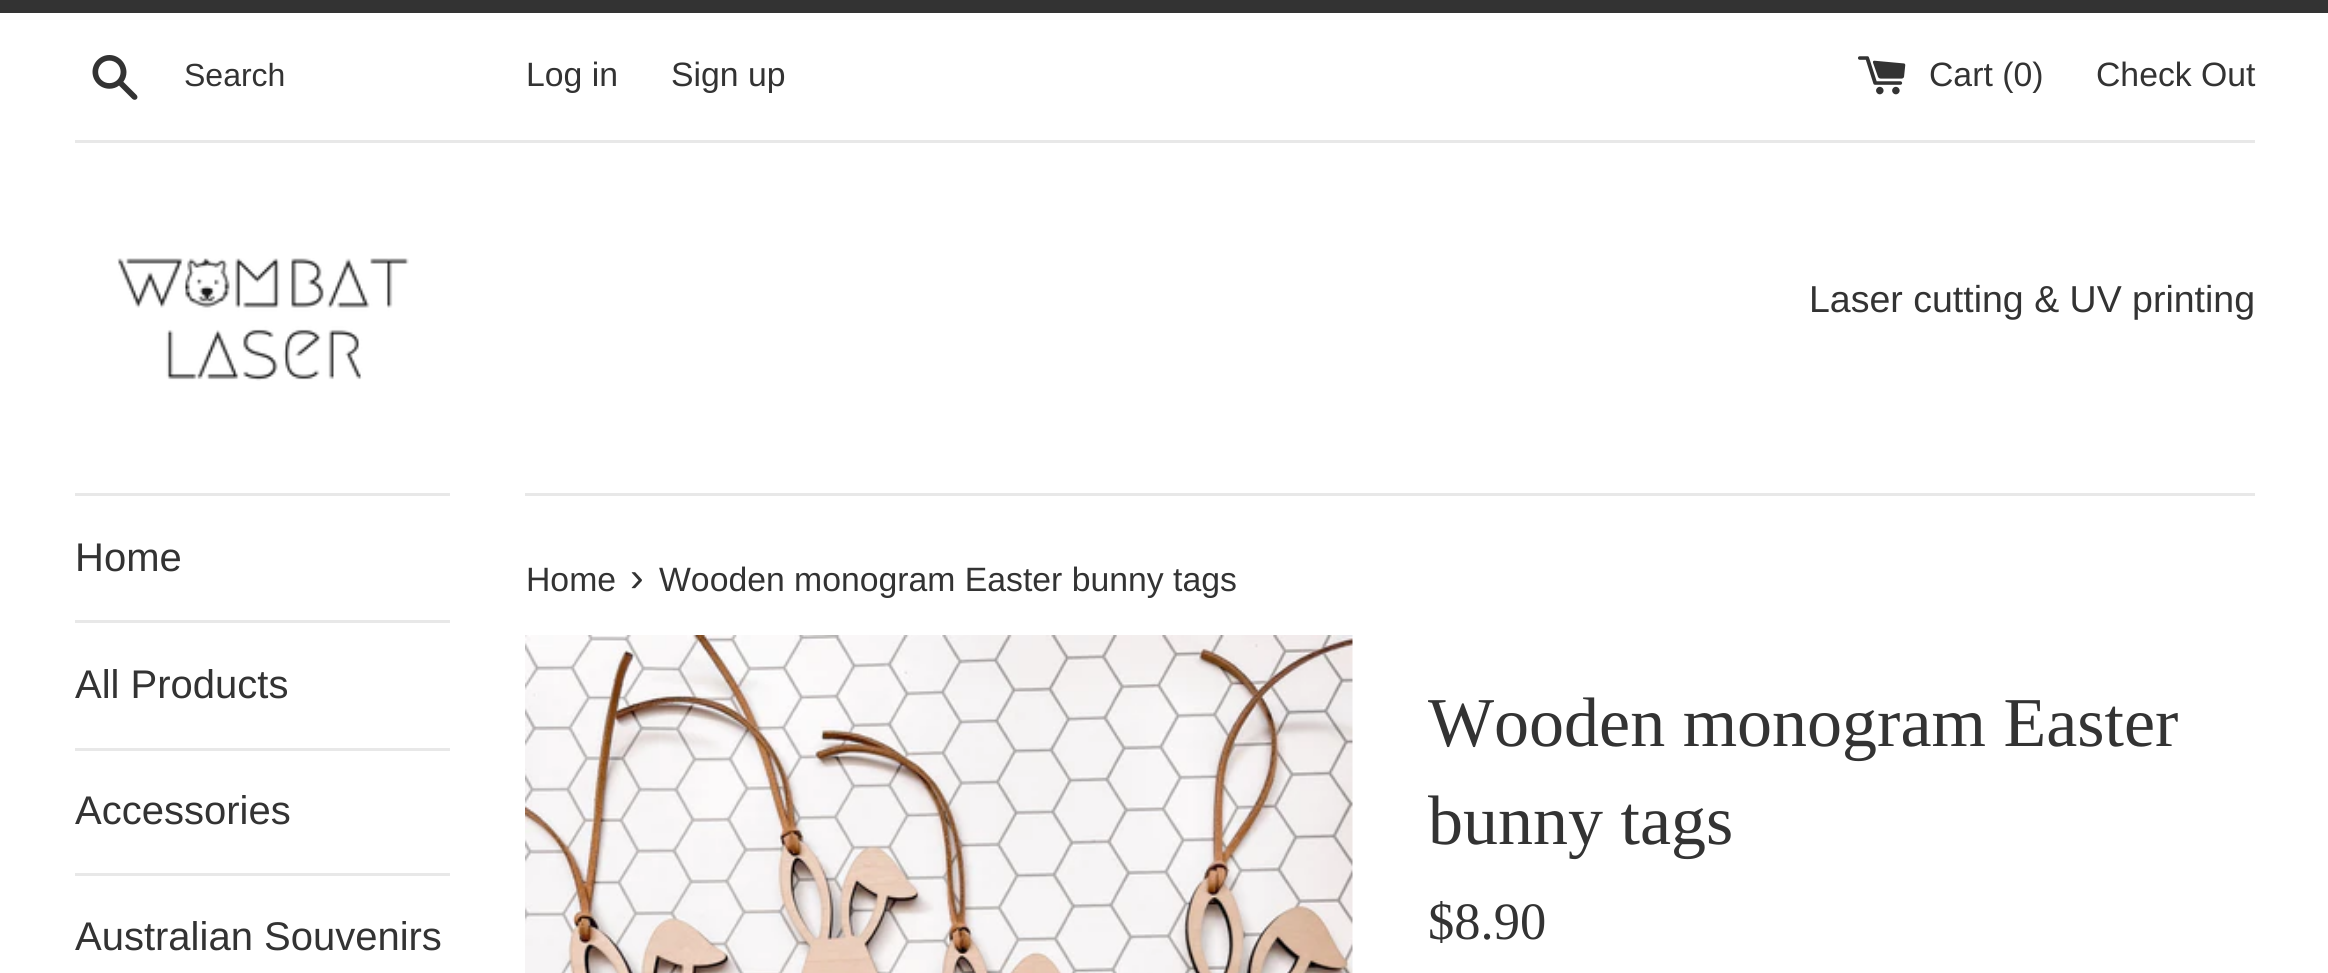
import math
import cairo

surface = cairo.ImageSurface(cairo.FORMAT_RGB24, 2328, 973)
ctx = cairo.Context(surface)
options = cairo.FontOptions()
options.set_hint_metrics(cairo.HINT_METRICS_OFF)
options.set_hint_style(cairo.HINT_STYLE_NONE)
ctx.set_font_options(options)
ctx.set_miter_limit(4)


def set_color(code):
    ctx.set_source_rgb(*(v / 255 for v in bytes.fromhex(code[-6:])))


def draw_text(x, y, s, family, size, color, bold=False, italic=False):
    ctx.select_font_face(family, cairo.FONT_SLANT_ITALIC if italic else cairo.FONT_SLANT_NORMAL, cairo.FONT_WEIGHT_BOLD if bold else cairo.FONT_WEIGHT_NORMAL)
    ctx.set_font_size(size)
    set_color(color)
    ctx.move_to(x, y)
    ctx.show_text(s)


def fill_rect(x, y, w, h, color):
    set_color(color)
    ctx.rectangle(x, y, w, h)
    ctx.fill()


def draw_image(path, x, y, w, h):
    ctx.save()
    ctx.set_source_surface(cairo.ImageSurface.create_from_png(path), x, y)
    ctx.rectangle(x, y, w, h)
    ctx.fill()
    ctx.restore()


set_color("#ffffff")
ctx.paint()
fill_rect(0, 0, 2328, 13, "#333333")
draw_image("assets/img1.png", 92, 55, 46, 45)
draw_text(184, 86, "Search", "Liberation Sans", 32, "#333333")
draw_text(526, 86, "Log in", "Liberation Sans", 33.75, "#333333")
draw_text(671, 86, "Sign up", "Liberation Sans", 33.75, "#333333")
draw_image("assets/img2.png", 1858, 56, 48, 39)
draw_text(1929, 86, "Cart (0)", "Liberation Sans", 33.75, "#333333")
draw_text(2096, 86, "Check Out", "Liberation Sans", 33.75, "#333333")
fill_rect(75, 140, 2180, 3, "#e8e8e8")
draw_image("assets/img3.png", 117, 258, 292, 123)
draw_text(1809, 312, "Laser cutting & UV printing", "Liberation Sans", 37.5, "#333333")
fill_rect(75, 493, 375, 3, "#e8e8e8")
fill_rect(75, 620, 375, 3, "#e8e8e8")
draw_text(75, 571, "Home", "Liberation Sans", 40, "#333333")
fill_rect(75, 748, 375, 3, "#e8e8e8")
draw_text(75, 698, "All Products", "Liberation Sans", 40, "#333333")
fill_rect(75, 873, 375, 3, "#e8e8e8")
draw_text(75, 824, "Accessories", "Liberation Sans", 40, "#333333")
draw_text(75, 950, "Australian Souvenirs", "Liberation Sans", 40, "#333333")
fill_rect(525, 493, 1730, 3, "#e8e8e8")
draw_text(526, 591, "Home", "Liberation Sans", 33.75, "#333333")
draw_text(630, 591, "›", "Liberation Sans", 41, "#333333")
draw_text(659, 591, "Wooden monogram Easter bunny tags", "Liberation Sans", 33.75, "#333333")
draw_image("assets/img4.png", 525, 635, 828, 338)
draw_text(1428, 746, "Wooden monogram Easter", "Liberation Serif", 70, "#333333")
draw_text(1428, 844, "bunny tags", "Liberation Serif", 70, "#333333")
draw_text(1428, 939, "$8.90", "Liberation Serif", 52.5, "#333333")
surface.write_to_png("output.png")
